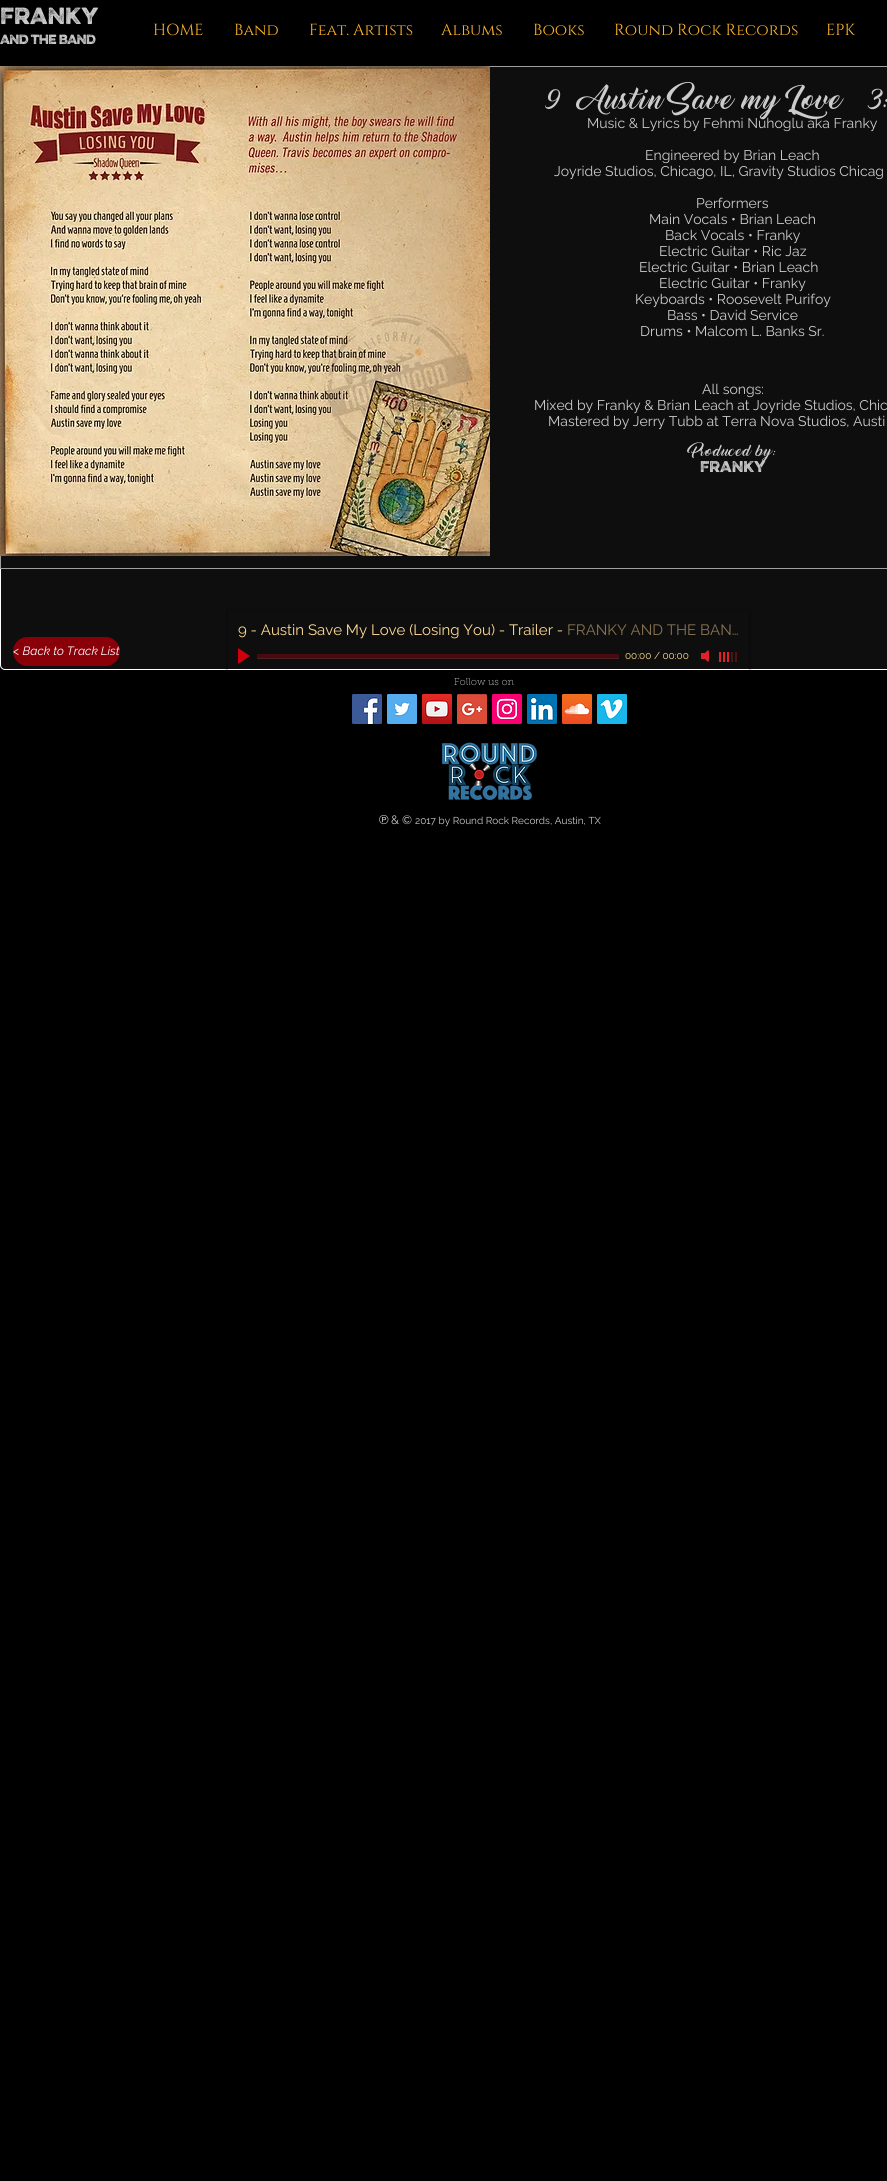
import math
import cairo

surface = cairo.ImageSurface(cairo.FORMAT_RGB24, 887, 2181)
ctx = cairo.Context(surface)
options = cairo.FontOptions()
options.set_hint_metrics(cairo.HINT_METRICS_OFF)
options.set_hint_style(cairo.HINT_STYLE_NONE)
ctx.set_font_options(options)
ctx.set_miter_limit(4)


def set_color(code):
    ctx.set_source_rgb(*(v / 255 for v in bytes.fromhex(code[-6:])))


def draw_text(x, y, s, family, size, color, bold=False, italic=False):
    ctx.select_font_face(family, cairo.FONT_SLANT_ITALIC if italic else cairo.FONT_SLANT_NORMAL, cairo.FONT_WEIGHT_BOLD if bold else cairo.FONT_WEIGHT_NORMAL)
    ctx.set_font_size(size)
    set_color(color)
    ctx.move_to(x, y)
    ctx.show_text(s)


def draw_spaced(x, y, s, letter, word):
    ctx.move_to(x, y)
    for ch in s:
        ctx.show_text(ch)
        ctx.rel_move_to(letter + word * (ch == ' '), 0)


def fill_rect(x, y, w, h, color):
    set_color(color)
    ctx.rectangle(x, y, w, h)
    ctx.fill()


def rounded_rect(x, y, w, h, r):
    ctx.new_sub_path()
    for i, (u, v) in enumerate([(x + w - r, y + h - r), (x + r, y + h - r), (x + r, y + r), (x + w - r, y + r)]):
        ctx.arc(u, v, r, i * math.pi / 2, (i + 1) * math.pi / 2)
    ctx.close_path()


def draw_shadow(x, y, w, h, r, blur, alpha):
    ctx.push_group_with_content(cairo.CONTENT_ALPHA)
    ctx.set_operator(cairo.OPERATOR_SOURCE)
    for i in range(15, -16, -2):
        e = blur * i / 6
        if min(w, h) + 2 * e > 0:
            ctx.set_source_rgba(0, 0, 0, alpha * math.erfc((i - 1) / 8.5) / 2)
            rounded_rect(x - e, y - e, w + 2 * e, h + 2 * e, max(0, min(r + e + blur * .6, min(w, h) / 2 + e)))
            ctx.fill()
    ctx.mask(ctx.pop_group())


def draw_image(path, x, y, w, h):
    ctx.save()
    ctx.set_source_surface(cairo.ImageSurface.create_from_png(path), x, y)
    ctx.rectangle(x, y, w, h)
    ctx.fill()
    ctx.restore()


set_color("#000000")
ctx.paint()
draw_text(0, 24, "FRANKY", "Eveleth", 21, "#cccccc")
ctx.set_font_size(12)
draw_spaced(0, 44, "AND THE BAND", -0.6, 0)
draw_text(153, 35, "HOME", "Cinzel", 16, "#ffb429")
draw_text(234, 35, "Band", "Cinzel", 16, "#ffb429")
draw_text(309, 35, "Feat. Artists", "Cinzel", 16, "#ffb429")
draw_text(441, 35, "Albums", "Cinzel", 16, "#ffb429")
draw_text(533, 35, "Books", "Cinzel", 16, "#ffb429")
draw_text(614, 35, "Round Rock Records", "Cinzel", 16, "#ffb429")
draw_text(826, 35, "EPK", "Cinzel", 16, "#ffb429")
set_color("#0e0e0e")
rounded_rect(0.5, 66.5, 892, 603, 4.5)
ctx.fill_preserve()
set_color("#ffffff")
ctx.set_line_width(1)
ctx.stroke()
ctx.rectangle(0.5, 66.5, 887, 502)
set_color("#a0a09f")
ctx.stroke()
draw_image("assets/img1.png", 0, 66, 490, 490)
draw_text(545, 109, "9   Austin Save my Love   3:", "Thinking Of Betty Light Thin", 23, "#cccccc")
draw_text(587, 128, "Music & Lyrics by Fehmi Nuhoglu aka Franky", "Raleway", 14, "#cccccc")
draw_text(645, 160, "Engineered by Brian Leach", "Raleway", 14, "#cccccc")
draw_text(554, 176, "Joyride Studios, Chicago, IL, Gravity Studios Chicag", "Raleway", 14, "#cccccc")
draw_text(696, 208, "Performers", "Raleway", 14, "#cccccc")
draw_text(649, 224, "Main Vocals • Brian Leach", "Raleway", 14, "#cccccc")
draw_text(665, 240, "Back Vocals • Franky", "Raleway", 14, "#cccccc")
draw_text(659, 256, "Electric Guitar • Ric Jaz", "Raleway", 14, "#cccccc")
draw_text(639, 272, "Electric Guitar • Brian Leach", "Raleway", 14, "#cccccc")
draw_text(659, 288, "Electric Guitar • Franky", "Raleway", 14, "#cccccc")
draw_text(635, 304, "Keyboards • Roosevelt Purifoy", "Raleway", 14, "#cccccc")
draw_text(667, 320, "Bass • David Service", "Raleway", 14, "#cccccc")
draw_text(640, 336, "Drums • Malcom L. Banks Sr.", "Raleway", 14, "#cccccc")
draw_text(702, 394, "All songs:", "Raleway", 14, "#cccccc")
draw_text(534, 410, "Mixed by Franky & Brian Leach at Joyride Studios, Chic", "Raleway", 14, "#cccccc")
draw_text(548, 426, "Mastered by Jerry Tubb at Terra Nova Studios, Austi", "Raleway", 14, "#cccccc")
draw_text(690, 456, "Produced by:", "Thinking Of Betty Light Thin", 12, "#cccccc")
draw_text(700, 472, "FRANKY", "Eveleth", 14, "#cccccc")
set_color("#8a0009")
rounded_rect(13, 637, 107, 29, 14.5)
ctx.fill()
draw_text(13, 655, "< Back to Track List", "Raleway", 12, "#ffffff", italic=True)
ctx.save()
ctx.set_fill_rule(cairo.FILL_RULE_EVEN_ODD)
ctx.new_path()
ctx.move_to(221, 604)
ctx.line_to(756, 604)
ctx.line_to(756, 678)
ctx.line_to(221, 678)
ctx.close_path()
ctx.move_to(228, 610)
ctx.line_to(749, 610)
ctx.line_to(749, 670)
ctx.line_to(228, 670)
ctx.close_path()
ctx.clip()
set_color("#000000")
draw_shadow(228, 611, 521, 60, 0, 2, 0.6)
ctx.restore()
draw_text(238, 635, "9 - Austin Save My Love (Losing You) - Trailer -", "Raleway", 15, "#ffda94")
draw_text(567, 635, "FRANKY AND THE BAN…", "Raleway", 15, "#877451")
set_color("#cf000e")
ctx.new_path()
ctx.move_to(238, 664)
ctx.line_to(238, 648)
ctx.line_to(250, 656)
ctx.close_path()
ctx.fill()
fill_rect(257, 654, 362, 4, "#480a0e")
fill_rect(257, 658, 362, 1, "#4c2124")
draw_text(625, 659, "00:00 / 00:00", "Raleway", 10, "#ffda94")
set_color("#e12126")
ctx.new_path()
ctx.move_to(702, 656)
ctx.line_to(708, 662)
ctx.curve_to(709.5, 660.5, 709, 658, 709, 656)
ctx.curve_to(709, 654, 709.5, 651.5, 708, 650)
ctx.close_path()
ctx.fill()
fill_rect(701, 653, 4, 6, "#e12126")
fill_rect(719, 652, 2, 10, "#e12126")
fill_rect(723, 652, 2, 10, "#e12126")
fill_rect(727, 652, 2, 10, "#e12126")
fill_rect(731, 652, 2, 10, "#4d1415")
fill_rect(735, 652, 2, 10, "#4d1415")
draw_text(454, 685, "Follow us on", "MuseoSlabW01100 Thin", 10, "#cccccc")
draw_image("assets/img2.png", 352, 694, 30, 30)
draw_image("assets/img3.png", 387, 694, 30, 30)
draw_image("assets/img4.png", 422, 694, 30, 30)
draw_image("assets/img5.png", 457, 694, 30, 30)
draw_image("assets/img6.png", 492, 694, 30, 30)
draw_image("assets/img7.png", 527, 694, 30, 30)
draw_image("assets/img8.png", 562, 694, 30, 30)
draw_image("assets/img9.png", 597, 694, 30, 30)
draw_image("assets/img10.png", 442, 742, 95, 59)
draw_text(379, 824, "℗", "Liberation Sans", 13, "#cccccc")
draw_text(391, 824, "& ©", "Raleway", 12, "#cccccc")
draw_text(415, 824, "2017 by Round Rock Records, Austin, TX", "Raleway", 10, "#cccccc")
surface.write_to_png("output.png")
